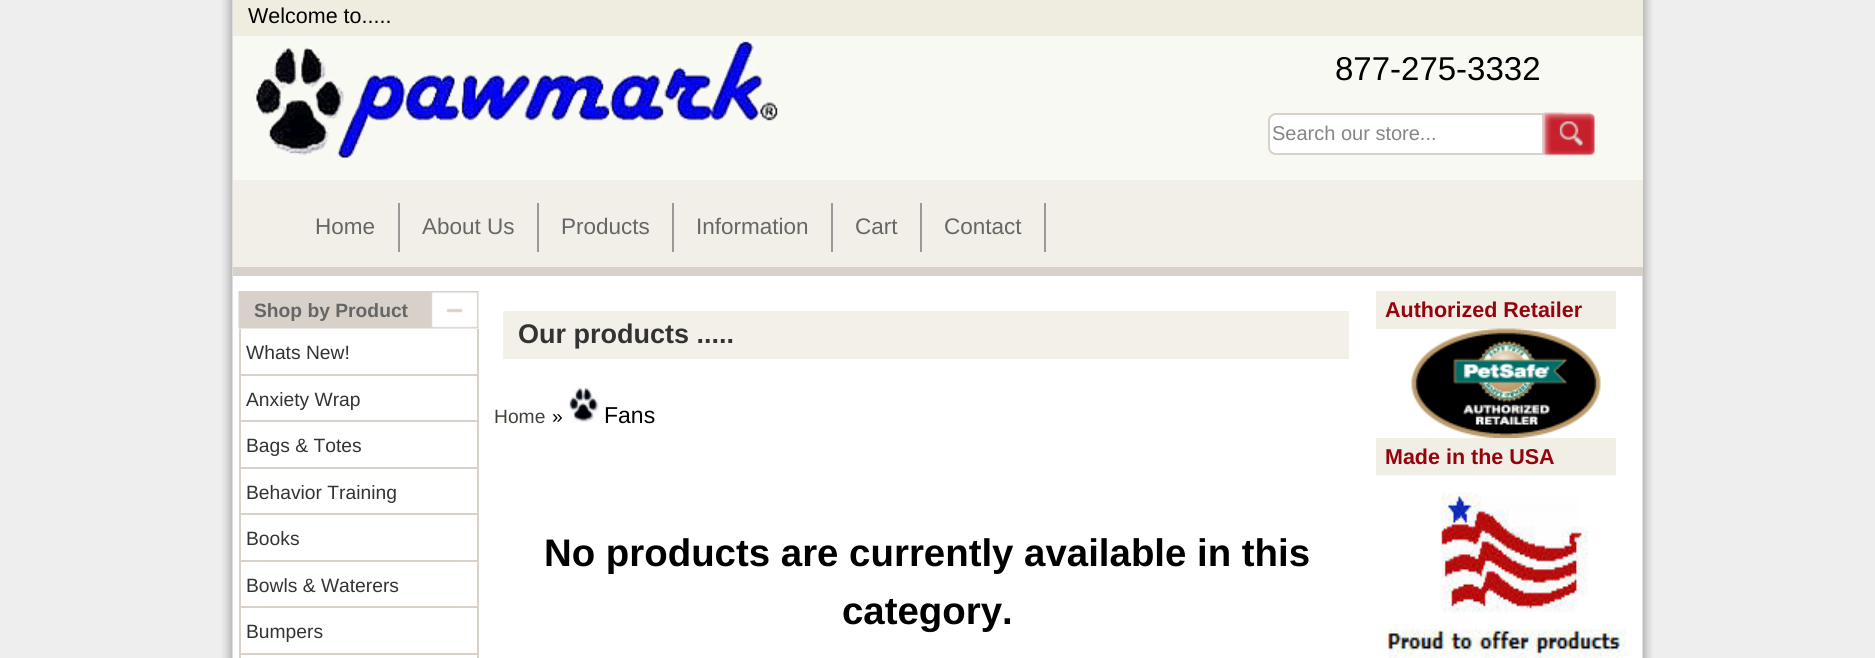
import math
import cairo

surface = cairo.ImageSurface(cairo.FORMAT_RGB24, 1875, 658)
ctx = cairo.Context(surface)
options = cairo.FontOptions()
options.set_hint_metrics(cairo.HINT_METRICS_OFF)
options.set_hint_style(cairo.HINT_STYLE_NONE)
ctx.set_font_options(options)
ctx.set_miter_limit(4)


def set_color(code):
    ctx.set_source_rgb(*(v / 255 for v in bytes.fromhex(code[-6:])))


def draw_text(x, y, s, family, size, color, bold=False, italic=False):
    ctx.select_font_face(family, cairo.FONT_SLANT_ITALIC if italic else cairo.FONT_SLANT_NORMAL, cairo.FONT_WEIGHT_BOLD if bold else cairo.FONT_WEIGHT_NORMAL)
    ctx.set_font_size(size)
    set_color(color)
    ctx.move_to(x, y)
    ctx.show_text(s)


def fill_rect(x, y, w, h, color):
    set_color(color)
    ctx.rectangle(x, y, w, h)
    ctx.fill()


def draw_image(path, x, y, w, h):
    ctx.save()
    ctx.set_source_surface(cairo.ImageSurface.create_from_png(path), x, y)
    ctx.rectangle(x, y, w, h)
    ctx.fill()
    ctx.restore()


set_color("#eeeeee")
ctx.paint()
draw_image("assets/img1.png", 222, 0, 1431, 658)
fill_rect(233, 0, 1410, 36, "#efece0")
draw_text(248, 23, "Welcome to.....", "Liberation Sans", 21.5, "#000000")
fill_rect(233, 36, 1410, 144, "#f9f9f4")
draw_image("assets/img2.png", 253, 39, 526, 122)
draw_text(1335, 80, "877-275-3332", "Liberation Sans", 33, "#000000")
set_color("#ffffff")
ctx.new_path()
ctx.move_to(1276, 114)
ctx.line_to(1543, 114)
ctx.line_to(1543, 154)
ctx.line_to(1276, 154)
ctx.curve_to(1272, 154, 1269, 151, 1269, 147)
ctx.line_to(1269, 121)
ctx.curve_to(1269, 117, 1272, 114, 1276, 114)
ctx.close_path()
ctx.fill_preserve()
set_color("#d7d1c9")
ctx.stroke()
draw_text(1272, 140, "Search our store...", "Liberation Sans", 20, "#858585")
draw_image("assets/img3.png", 1543, 112, 53, 44)
fill_rect(233, 180, 1410, 87, "#f2efe8")
fill_rect(398, 203, 2, 49, "#999999")
draw_text(315, 234, "Home", "Liberation Sans", 22.5, "#666666")
fill_rect(537, 203, 2, 49, "#999999")
draw_text(422, 234, "About Us", "Liberation Sans", 22.5, "#666666")
fill_rect(672, 203, 2, 49, "#999999")
draw_text(561, 234, "Products", "Liberation Sans", 22.5, "#666666")
fill_rect(831, 203, 2, 49, "#999999")
draw_text(696, 234, "Information", "Liberation Sans", 22.5, "#666666")
fill_rect(920, 203, 2, 49, "#999999")
draw_text(855, 234, "Cart", "Liberation Sans", 22.5, "#666666")
fill_rect(1044, 203, 2, 49, "#999999")
draw_text(944, 234, "Contact", "Liberation Sans", 22.5, "#666666")
fill_rect(233, 267, 1410, 9, "#d7d1c9")
draw_image("assets/img4.png", 238, 291, 241, 38)
draw_text(254, 317, "Shop by Product", "Liberation Sans", 19.25, "#666666", bold=True)
fill_rect(477, 329, 2, 46, "#d7d1c9")
fill_rect(239, 374, 240, 2, "#d7d1c9")
fill_rect(239, 329, 2, 46, "#d7d1c9")
draw_text(246, 359, "Whats New!", "Liberation Sans", 19.25, "#333333")
fill_rect(477, 375, 2, 93, "#d7d1c9")
fill_rect(239, 420, 240, 2, "#d7d1c9")
fill_rect(239, 375, 2, 47, "#d7d1c9")
draw_text(246, 406, "Anxiety Wrap", "Liberation Sans", 19.25, "#333333")
fill_rect(239, 467, 240, 2, "#d7d1c9")
fill_rect(239, 422, 2, 46, "#d7d1c9")
draw_text(246, 452, "Bags & Totes", "Liberation Sans", 19.25, "#333333")
fill_rect(477, 468, 2, 93, "#d7d1c9")
fill_rect(239, 513, 240, 2, "#d7d1c9")
fill_rect(239, 468, 2, 47, "#d7d1c9")
draw_text(246, 499, "Behavior Training", "Liberation Sans", 19.25, "#333333")
fill_rect(239, 560, 240, 2, "#d7d1c9")
fill_rect(239, 515, 2, 46, "#d7d1c9")
draw_text(246, 545, "Books", "Liberation Sans", 19.25, "#333333")
fill_rect(477, 561, 2, 93, "#d7d1c9")
fill_rect(239, 606, 240, 2, "#d7d1c9")
fill_rect(239, 561, 2, 47, "#d7d1c9")
draw_text(246, 592, "Bowls & Waterers", "Liberation Sans", 19.25, "#333333")
fill_rect(239, 653, 240, 2, "#d7d1c9")
fill_rect(239, 608, 2, 50, "#d7d1c9")
draw_text(246, 638, "Bumpers", "Liberation Sans", 19.25, "#333333")
fill_rect(477, 654, 2, 4, "#d7d1c9")
fill_rect(503, 311, 846, 48, "#f3f0e9")
draw_text(518, 343, "Our products .....", "Liberation Sans", 27, "#333333", bold=True)
draw_text(494, 423, "Home", "Liberation Sans", 19.25, "#42413c")
draw_text(552, 423, "»", "Liberation Sans", 19.25, "#000000")
draw_image("assets/img5.png", 568, 387, 31, 36)
draw_text(604, 423, "Fans", "Liberation Sans", 23, "#000000")
draw_text(544, 566, "No products are currently available in this", "Liberation Sans", 38.4, "#000000", bold=True)
draw_text(842, 624, "category.", "Liberation Sans", 38.4, "#000000", bold=True)
fill_rect(1376, 291, 240, 38, "#f1eee5")
draw_text(1385, 317, "Authorized Retailer", "Liberation Sans", 21.5, "#95030d", bold=True)
draw_image("assets/img6.png", 1411, 328, 190, 110)
fill_rect(1376, 438, 240, 38, "#f1eee5")
draw_text(1385, 464, "Made in the USA", "Liberation Sans", 21.5, "#95030d", bold=True)
draw_image("assets/img7.png", 1376, 475, 250, 183)
surface.write_to_png("output.png")
